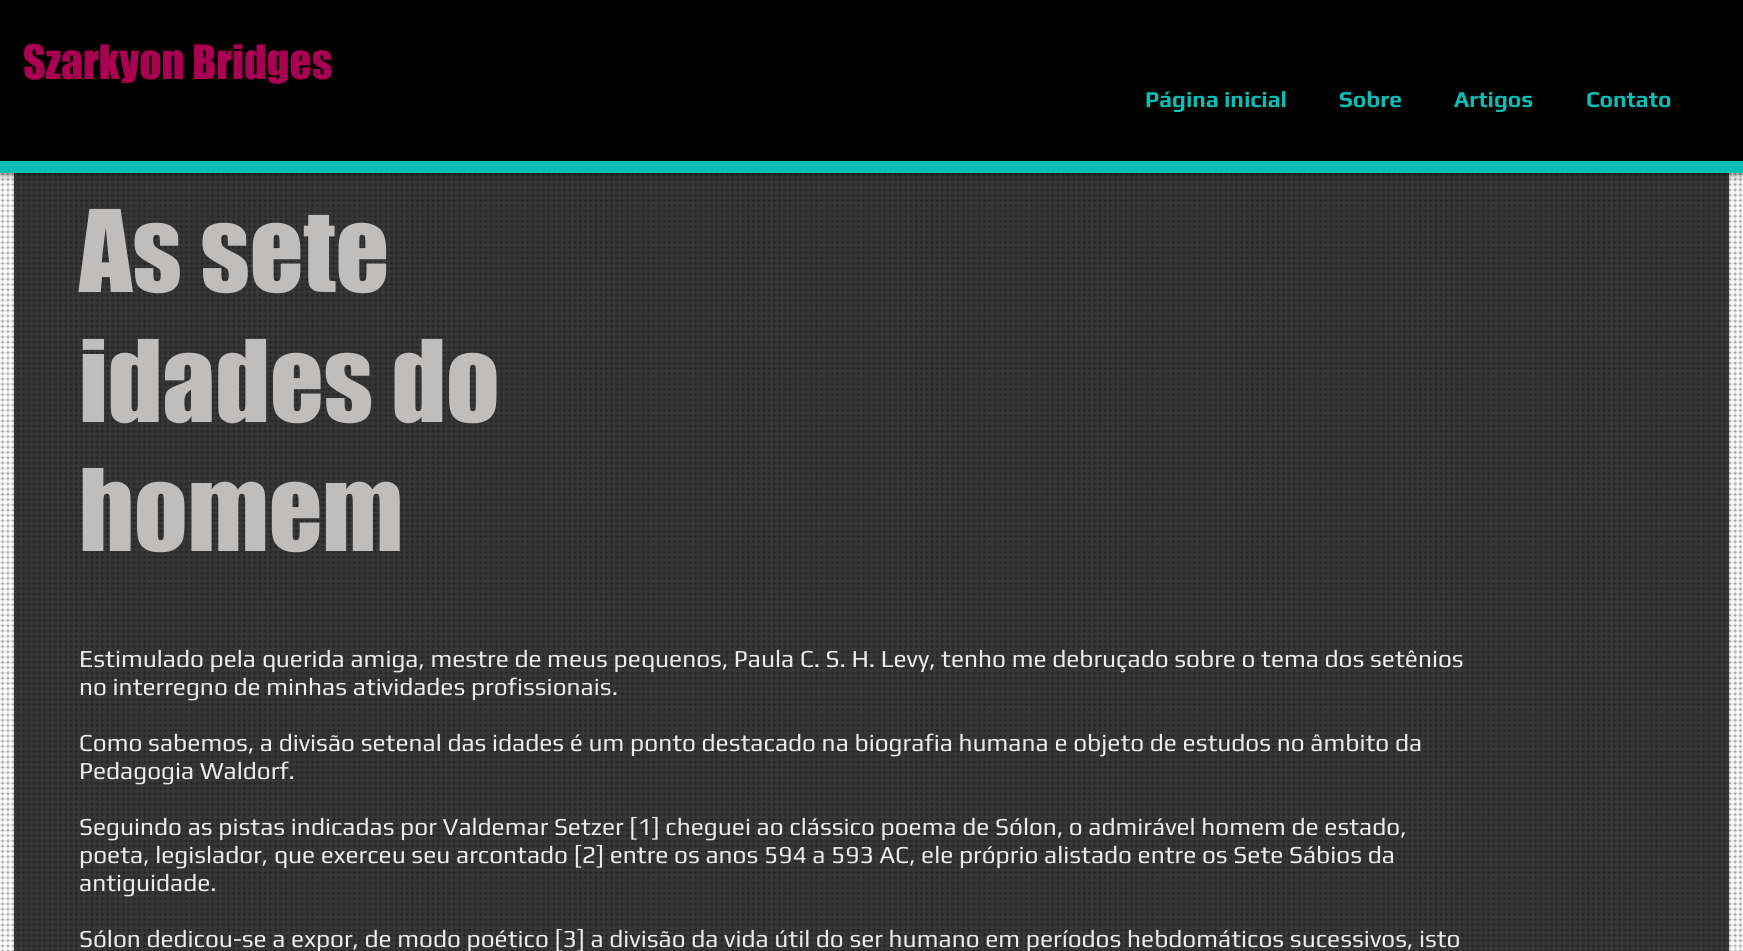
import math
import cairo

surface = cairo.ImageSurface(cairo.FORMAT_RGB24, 1743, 951)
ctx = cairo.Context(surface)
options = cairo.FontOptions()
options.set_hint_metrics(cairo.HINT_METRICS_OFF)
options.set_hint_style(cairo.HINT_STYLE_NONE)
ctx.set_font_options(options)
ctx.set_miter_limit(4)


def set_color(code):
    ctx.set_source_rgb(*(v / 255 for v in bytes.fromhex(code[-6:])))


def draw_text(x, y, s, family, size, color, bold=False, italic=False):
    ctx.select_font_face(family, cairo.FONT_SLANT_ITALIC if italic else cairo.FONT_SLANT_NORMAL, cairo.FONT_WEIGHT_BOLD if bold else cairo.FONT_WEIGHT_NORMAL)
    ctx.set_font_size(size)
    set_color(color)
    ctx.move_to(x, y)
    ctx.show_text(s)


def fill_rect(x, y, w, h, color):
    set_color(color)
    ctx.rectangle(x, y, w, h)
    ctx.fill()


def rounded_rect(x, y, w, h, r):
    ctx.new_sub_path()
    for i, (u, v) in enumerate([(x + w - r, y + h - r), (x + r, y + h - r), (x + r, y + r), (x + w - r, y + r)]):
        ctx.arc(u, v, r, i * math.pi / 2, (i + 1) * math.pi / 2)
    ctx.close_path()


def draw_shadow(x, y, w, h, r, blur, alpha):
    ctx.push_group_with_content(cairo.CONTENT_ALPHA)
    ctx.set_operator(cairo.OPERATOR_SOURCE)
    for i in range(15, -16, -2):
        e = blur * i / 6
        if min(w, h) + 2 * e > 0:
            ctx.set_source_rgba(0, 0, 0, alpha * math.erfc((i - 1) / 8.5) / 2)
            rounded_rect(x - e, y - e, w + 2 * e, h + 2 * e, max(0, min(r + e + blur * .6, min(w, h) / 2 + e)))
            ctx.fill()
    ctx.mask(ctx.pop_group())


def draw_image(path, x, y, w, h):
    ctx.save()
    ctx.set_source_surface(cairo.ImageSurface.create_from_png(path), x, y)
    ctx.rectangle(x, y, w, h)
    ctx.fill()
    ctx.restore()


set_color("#ffffff")
ctx.paint()
draw_image("assets/img1.png", 0, 173, 1743, 778)
set_color("#000000")
draw_shadow(0, 0, 1743, 173, 0, 4.5, 0.7)
fill_rect(0, 0, 1743, 161, "#000000")
fill_rect(0, 161, 1743, 12, "#07bfb6")
draw_text(23, 79, "Szarkyon Bridges", "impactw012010", 43.75, "#a90052")
draw_text(1145, 107, "Página inicial", "Play", 22.75, "#07bfb6", bold=True)
draw_text(1339, 107, "Sobre", "Play", 22.75, "#07bfb6", bold=True)
draw_text(1454, 107, "Artigos", "Play", 22.75, "#07bfb6", bold=True)
draw_text(1586, 107, "Contato", "Play", 22.75, "#07bfb6", bold=True)
ctx.set_source_rgba(0, 0, 0, 0.78)
ctx.rectangle(14, 173, 1715, 778)
ctx.fill()
draw_text(79, 292, "As sete", "impactw012010", 105, "#c0bdbd")
draw_text(79, 422, "idades do", "impactw012010", 105, "#c0bdbd")
draw_text(79, 551, "homem", "impactw012010", 105, "#c0bdbd")
draw_text(79, 667, "Estimulado pela querida amiga, mestre de meus pequenos, Paula C. S. H. Levy, tenho me debruçado sobre o tema dos setênios", "Play", 24.5, "#ececec")
draw_text(79, 695, "no interregno de minhas atividades profissionais.", "Play", 24.5, "#ececec")
draw_text(79, 751, "Como sabemos, a divisão setenal das idades é um ponto destacado na biografia humana e objeto de estudos no âmbito da", "Play", 24.5, "#ececec")
draw_text(79, 779, "Pedagogia Waldorf.", "Play", 24.5, "#ececec")
draw_text(79, 835, "Seguindo as pistas indicadas por Valdemar Setzer [1] cheguei ao clássico poema de Sólon, o admirável homem de estado,", "Play", 24.5, "#ececec")
draw_text(79, 863, "poeta, legislador, que exerceu seu arcontado [2] entre os anos 594 a 593 AC, ele próprio alistado entre os Sete Sábios da", "Play", 24.5, "#ececec")
draw_text(79, 891, "antiguidade.", "Play", 24.5, "#ececec")
draw_text(79, 947, "Sólon dedicou-se a expor, de modo poético [3] a divisão da vida útil do ser humano em períodos hebdomáticos sucessivos, isto", "Play", 24.5, "#ececec")
surface.write_to_png("output.png")
